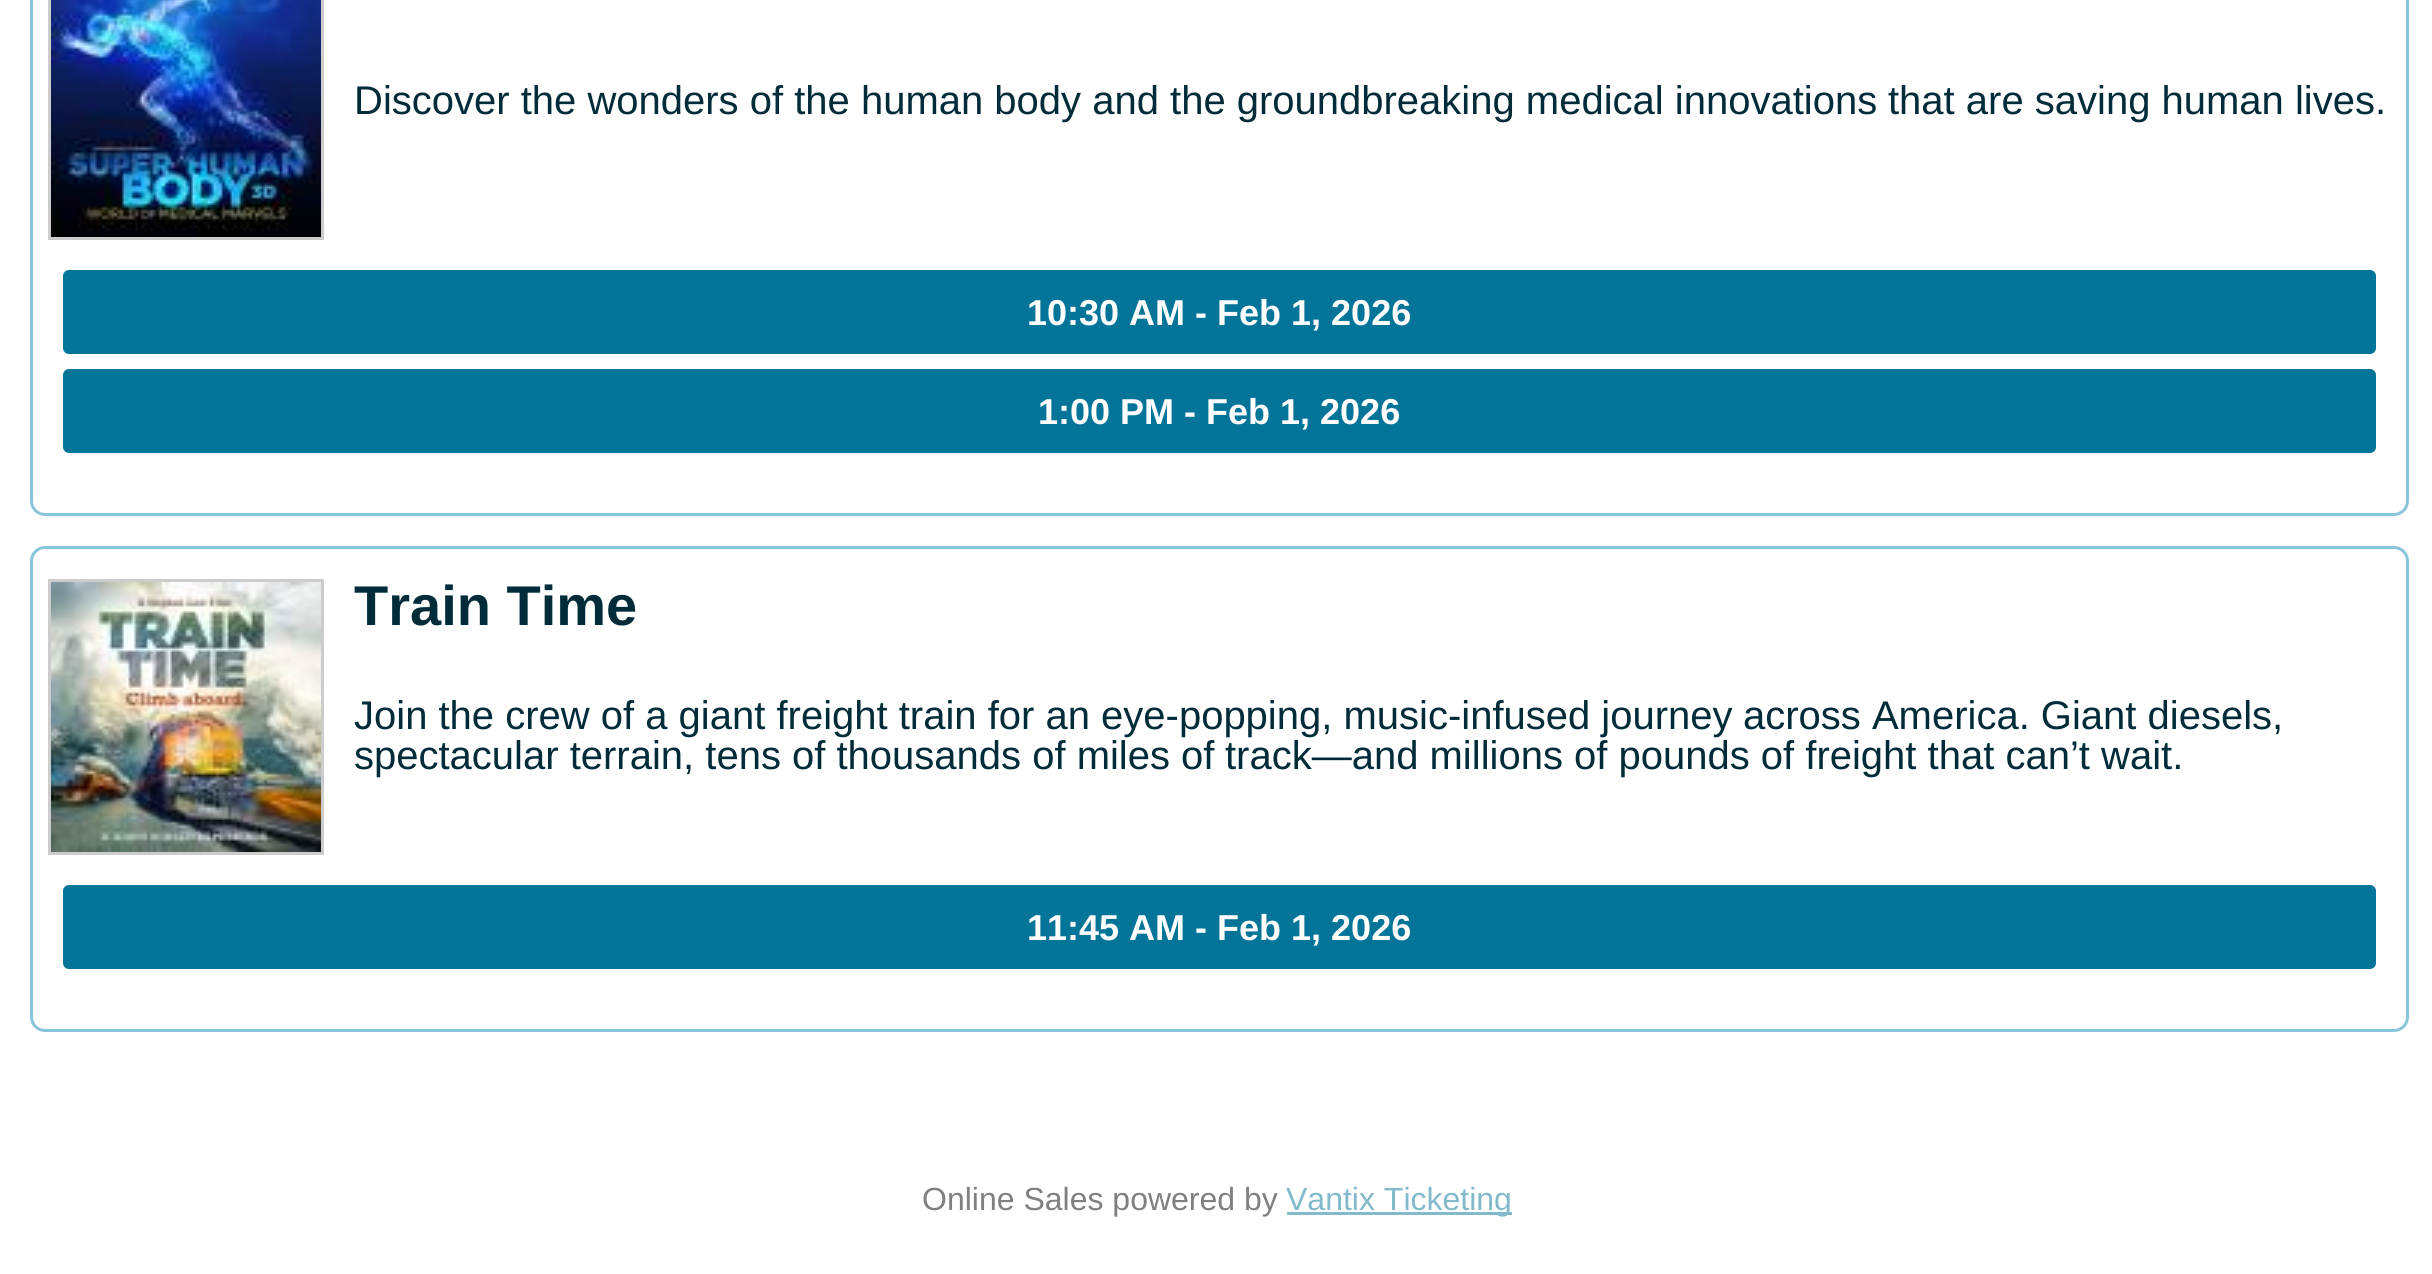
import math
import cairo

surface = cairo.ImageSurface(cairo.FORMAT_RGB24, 2432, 1274)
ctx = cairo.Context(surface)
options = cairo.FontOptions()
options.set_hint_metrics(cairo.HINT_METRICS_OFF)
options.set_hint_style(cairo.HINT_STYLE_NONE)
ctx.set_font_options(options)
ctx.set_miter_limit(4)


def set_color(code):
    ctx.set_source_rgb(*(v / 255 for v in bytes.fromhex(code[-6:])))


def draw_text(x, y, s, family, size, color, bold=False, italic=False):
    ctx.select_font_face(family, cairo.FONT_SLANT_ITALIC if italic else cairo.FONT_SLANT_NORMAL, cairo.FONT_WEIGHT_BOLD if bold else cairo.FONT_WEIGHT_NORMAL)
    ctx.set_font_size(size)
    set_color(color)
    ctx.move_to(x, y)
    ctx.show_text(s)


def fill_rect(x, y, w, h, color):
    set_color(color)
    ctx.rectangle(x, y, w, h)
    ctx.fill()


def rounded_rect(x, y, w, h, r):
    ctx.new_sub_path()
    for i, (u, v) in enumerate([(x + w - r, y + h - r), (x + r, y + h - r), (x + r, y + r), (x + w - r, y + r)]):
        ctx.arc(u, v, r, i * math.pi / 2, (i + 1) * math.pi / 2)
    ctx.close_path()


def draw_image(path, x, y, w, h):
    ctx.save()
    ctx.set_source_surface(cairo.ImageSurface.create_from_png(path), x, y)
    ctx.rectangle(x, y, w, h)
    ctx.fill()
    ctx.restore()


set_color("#ffffff")
ctx.paint()
rounded_rect(31.5, -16.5, 2376, 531, 13.5)
set_color("#88c5da")
ctx.set_line_width(3)
ctx.stroke()
ctx.rectangle(49.5, -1.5, 273, 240)
set_color("#cccccc")
ctx.stroke()
draw_image("assets/img1.png", 51, 0, 270, 237)
draw_text(354, 114, "Discover the wonders of the human body and the groundbreaking medical innovations", "Liberation Sans", 40, "#002b39")
draw_text(1888, 114, "that are saving human lives.", "Liberation Sans", 40, "#002b39")
set_color("#047499")
rounded_rect(63, 270, 2313, 84, 6)
ctx.fill()
draw_text(1027, 325, "10:30 AM - Feb 1, 2026", "Liberation Sans", 36, "#ffffff", bold=True)
set_color("#047499")
rounded_rect(63, 369, 2313, 84, 6)
ctx.fill()
draw_text(1038, 424, "1:00 PM - Feb 1, 2026", "Liberation Sans", 36, "#ffffff", bold=True)
rounded_rect(31.5, 547.5, 2376, 483, 13.5)
set_color("#88c5da")
ctx.stroke()
ctx.rectangle(49.5, 580.5, 273, 273)
set_color("#cccccc")
ctx.stroke()
draw_image("assets/img2.png", 51, 582, 270, 270)
draw_text(354, 625, "Train Time", "Liberation Sans", 56, "#002b39", bold=True)
draw_text(354, 729, "Join the crew of a giant freight train for an eye-popping, music-infused journey", "Liberation Sans", 40, "#002b39")
draw_text(1743, 729, "across America. Giant diesels,", "Liberation Sans", 40, "#002b39")
draw_text(354, 769, "spectacular terrain, tens of thousands of miles of", "Liberation Sans", 40, "#002b39")
draw_text(1225, 769, "track—and millions of pounds of freight that can’t wait.", "Liberation Sans", 40, "#002b39")
set_color("#047499")
rounded_rect(63, 885, 2313, 84, 6)
ctx.fill()
draw_text(1027, 940, "11:45 AM - Feb 1, 2026", "Liberation Sans", 36, "#ffffff", bold=True)
draw_text(922, 1210, "Online Sales powered by", "Liberation Sans", 32, "#808080")
fill_rect(1287, 1212, 225, 3, "#82bacc")
draw_text(1286, 1210, "Vantix Ticketing", "Liberation Sans", 32, "#82bacc")
surface.write_to_png("output.png")
